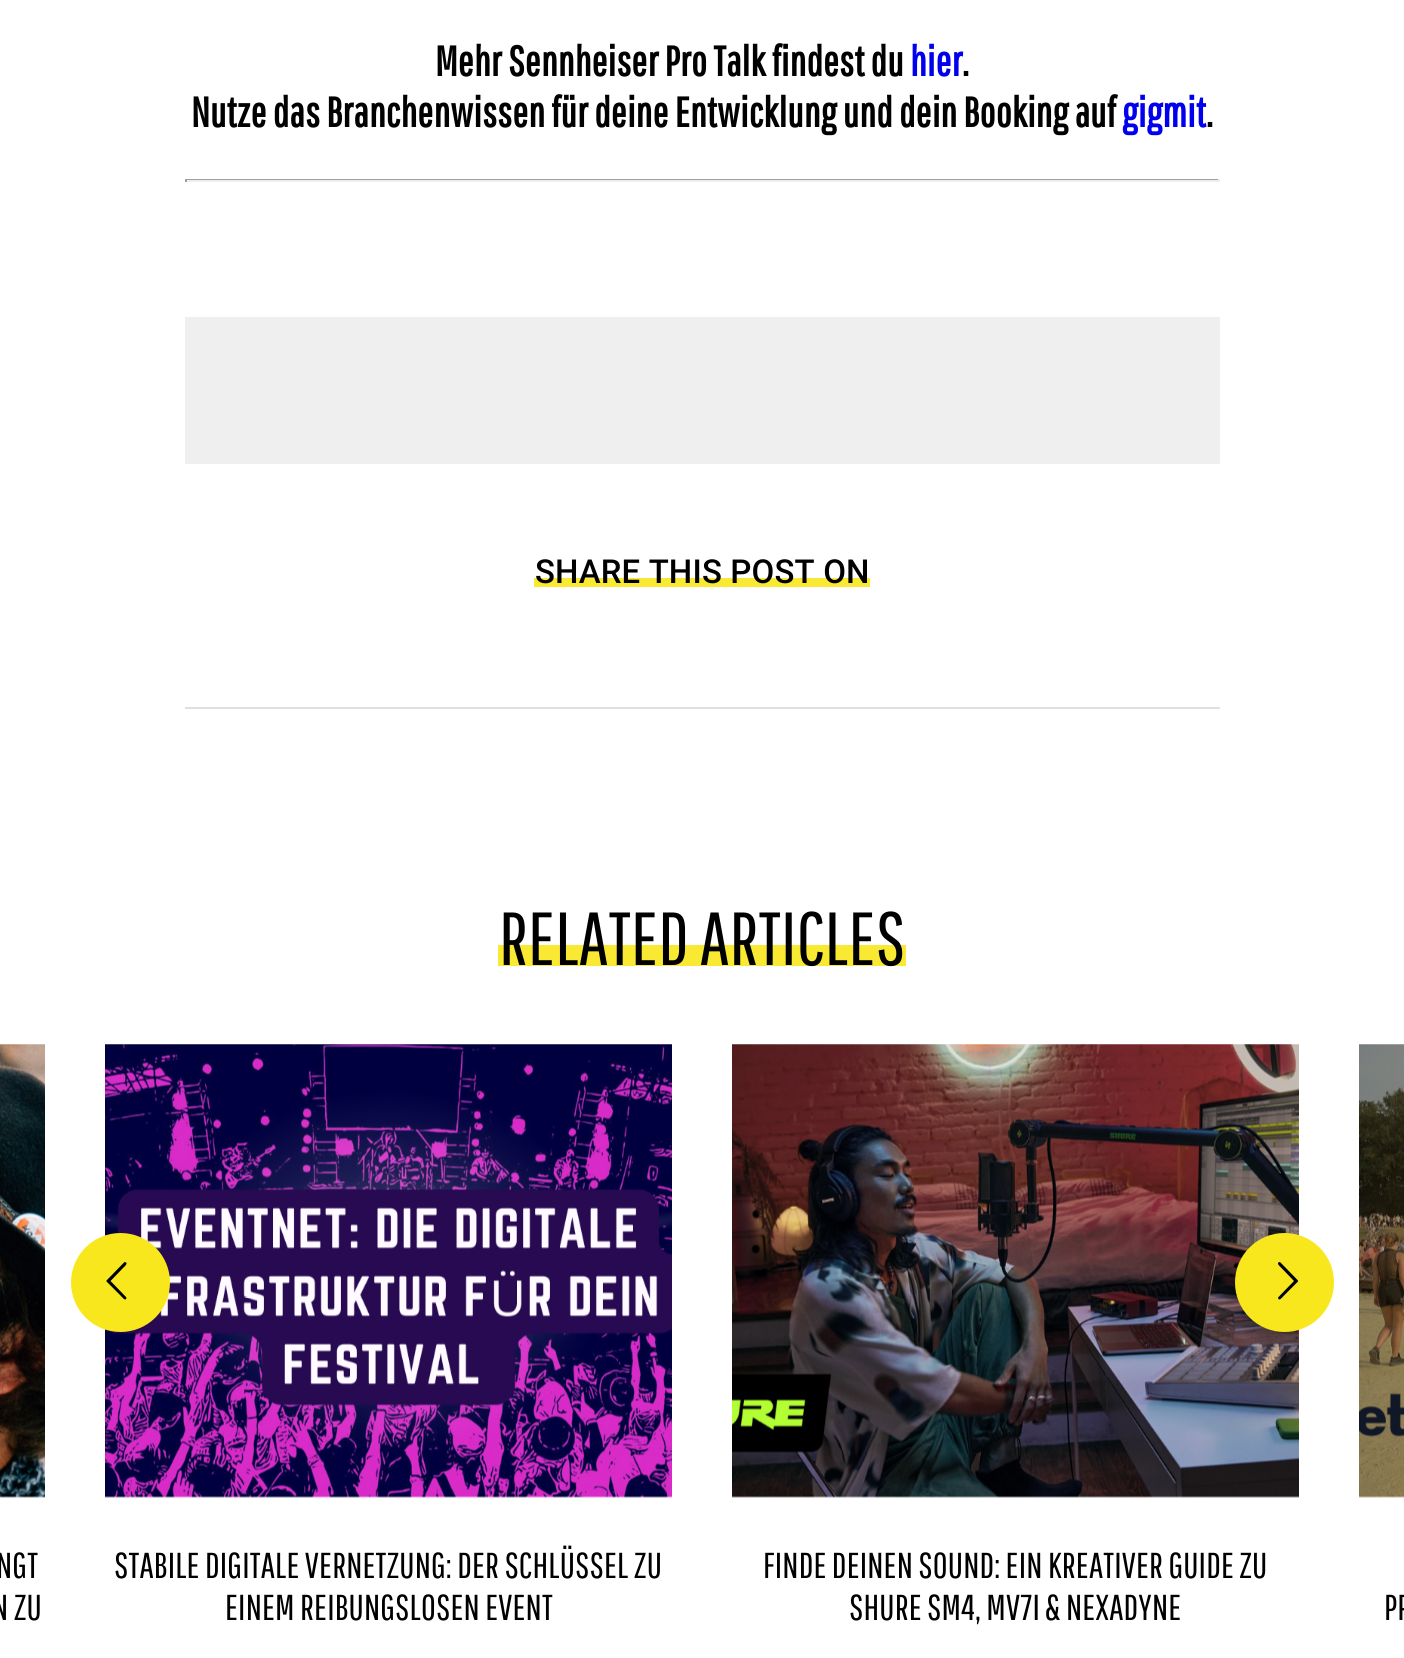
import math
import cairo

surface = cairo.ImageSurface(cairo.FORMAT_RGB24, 1404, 1658)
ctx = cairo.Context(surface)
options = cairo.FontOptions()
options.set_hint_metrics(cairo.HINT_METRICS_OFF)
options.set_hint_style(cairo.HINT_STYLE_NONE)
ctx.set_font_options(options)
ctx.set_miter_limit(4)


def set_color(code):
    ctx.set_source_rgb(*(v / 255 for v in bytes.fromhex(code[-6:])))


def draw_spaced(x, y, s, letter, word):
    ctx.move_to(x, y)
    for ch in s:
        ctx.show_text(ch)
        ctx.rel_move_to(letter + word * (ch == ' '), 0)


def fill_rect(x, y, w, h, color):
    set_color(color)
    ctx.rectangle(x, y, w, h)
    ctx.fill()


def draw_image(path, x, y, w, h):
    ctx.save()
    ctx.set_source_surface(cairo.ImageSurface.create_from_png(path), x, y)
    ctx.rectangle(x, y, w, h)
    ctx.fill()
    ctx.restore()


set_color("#ffffff")
ctx.paint()
ctx.select_font_face("Pathway Gothic One", cairo.FONT_SLANT_NORMAL, cairo.FONT_WEIGHT_BOLD)
ctx.set_font_size(42)
set_color("#000000")
draw_spaced(435, 76, "Mehr Sennheiser Pro Talk findest du", 0.15, 0)
set_color("#0000ee")
draw_spaced(910, 76, "hier", 0.15, 0)
set_color("#000000")
draw_spaced(962, 76, ".", 0.15, 0)
draw_spaced(191, 127, "Nutze das Branchenwissen für deine Entwicklung und dein Booking auf", 0.15, 0)
set_color("#0000ee")
draw_spaced(1122, 127, "gigmit", 0.15, 0)
set_color("#000000")
draw_spaced(1206, 127, ".", 0.15, 0)
fill_rect(185, 179, 1035, 1, "#9f9f9f")
fill_rect(1218, 179, 2, 3, "#eeeeee")
fill_rect(185, 180, 1035, 2, "#eeeeee")
fill_rect(185, 179, 2, 3, "#9f9f9f")
fill_rect(185, 317, 1035, 147, "#efefef")
fill_rect(534, 578, 336, 9, "#f9e933")
ctx.select_font_face("Roboto Medium")
ctx.set_font_size(33)
set_color("#000000")
draw_spaced(535, 583, "SHARE THIS POST ON", 0.15, 0)
fill_rect(185, 707, 1035, 2, "#e0e0e0")
fill_rect(498, 945, 408, 21, "#f9e933")
ctx.select_font_face("Pathway Gothic One")
ctx.set_font_size(75)
set_color("#000000")
draw_spaced(499, 965, "RELATED ARTICLES", 0.15, 0)
draw_image("assets/img2.png", 105, 1044, 567, 454)
set_color("#f8e71c")
ctx.arc(120.5, 1282.5, 49.5, 0, 2 * math.pi)
ctx.fill()
set_color("#000000")
ctx.new_path()
ctx.move_to(126, 1297)
ctx.line_to(126.5, 1298)
ctx.curve_to(125.5, 1302, 121.5, 1296.5, 121, 1296)
ctx.line_to(106.5, 1281.5)
ctx.line_to(106.5, 1280.5)
ctx.line_to(124, 1262.5)
ctx.line_to(125, 1262)
ctx.curve_to(129, 1263, 124, 1267, 123.5, 1267.5)
ctx.line_to(110.5, 1281)
ctx.close_path()
ctx.fill()
draw_image("assets/img3.png", 732, 1044, 567, 454)
set_color("#f8e71c")
ctx.arc(1284.5, 1282.5, 49.5, 0, 2 * math.pi)
ctx.fill()
set_color("#000000")
ctx.new_path()
ctx.move_to(1278.5, 1297)
ctx.line_to(1294, 1281)
ctx.line_to(1281, 1267.5)
ctx.curve_to(1280.5, 1267, 1275.5, 1263, 1279.5, 1262)
ctx.line_to(1280.5, 1262.5)
ctx.line_to(1298, 1280.5)
ctx.line_to(1298, 1281.5)
ctx.line_to(1283.5, 1296)
ctx.curve_to(1283, 1296.5, 1279, 1302, 1278, 1298)
ctx.close_path()
ctx.fill()
draw_image("assets/img1.png", 0, 1044, 45, 454)
ctx.set_font_size(36)
draw_spaced(-4, 1578, "NGT", 0.15, 0)
draw_spaced(-8, 1620, "N ZU", 0.15, 0)
draw_spaced(114, 1578, "STABILE DIGITALE VERNETZUNG: DER SCHLÜSSEL ZU", 0.15, 0)
draw_spaced(225, 1620, "EINEM REIBUNGSLOSEN EVENT", 0.15, 0)
draw_spaced(763, 1578, "FINDE DEINEN SOUND: EIN KREATIVER GUIDE ZU", 0.15, 0)
draw_spaced(849, 1620, "SHURE SM4, MV7I & NEXADYNE", 0.15, 0)
draw_image("assets/img4.png", 1359, 1044, 45, 454)
draw_spaced(1384, 1620, "PR", 0.15, 0)
surface.write_to_png("output.png")
